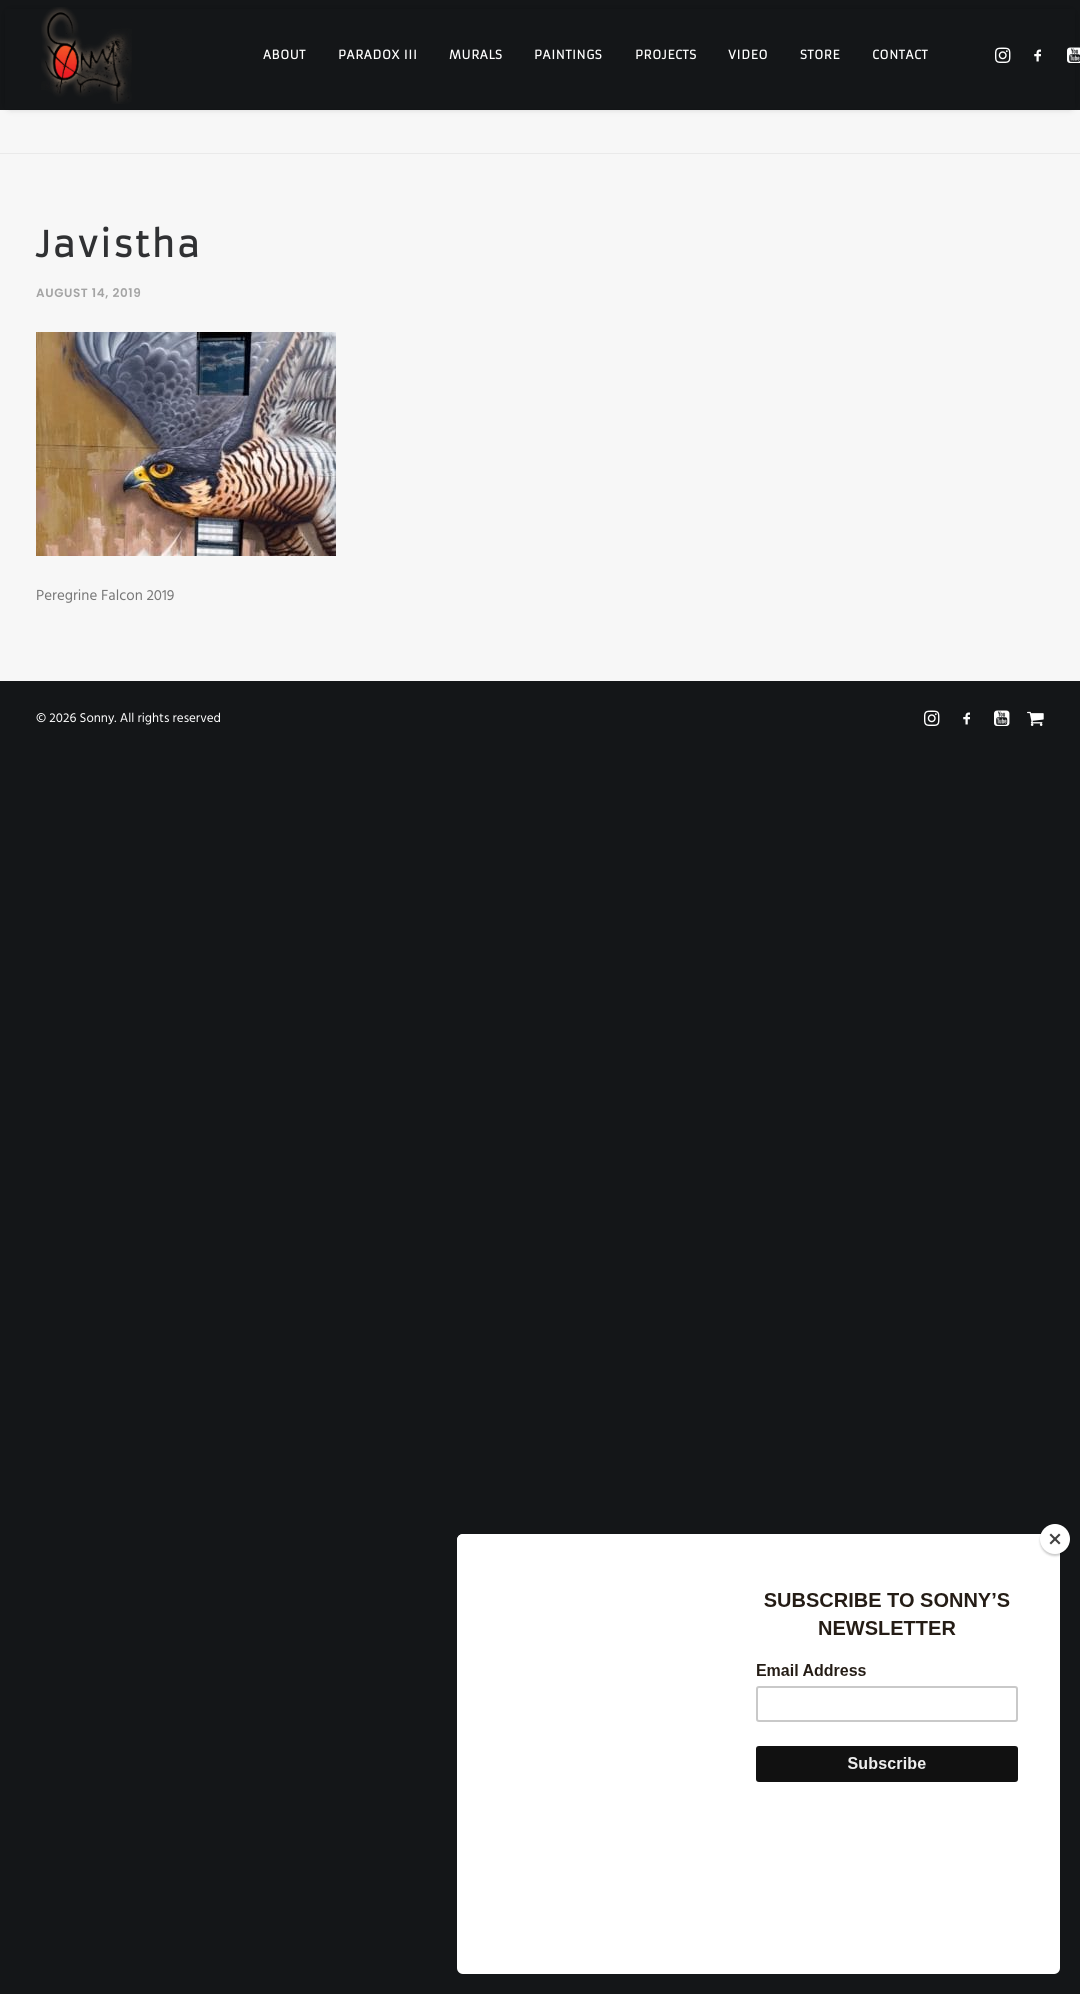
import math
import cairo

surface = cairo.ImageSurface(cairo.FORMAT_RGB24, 1080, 1994)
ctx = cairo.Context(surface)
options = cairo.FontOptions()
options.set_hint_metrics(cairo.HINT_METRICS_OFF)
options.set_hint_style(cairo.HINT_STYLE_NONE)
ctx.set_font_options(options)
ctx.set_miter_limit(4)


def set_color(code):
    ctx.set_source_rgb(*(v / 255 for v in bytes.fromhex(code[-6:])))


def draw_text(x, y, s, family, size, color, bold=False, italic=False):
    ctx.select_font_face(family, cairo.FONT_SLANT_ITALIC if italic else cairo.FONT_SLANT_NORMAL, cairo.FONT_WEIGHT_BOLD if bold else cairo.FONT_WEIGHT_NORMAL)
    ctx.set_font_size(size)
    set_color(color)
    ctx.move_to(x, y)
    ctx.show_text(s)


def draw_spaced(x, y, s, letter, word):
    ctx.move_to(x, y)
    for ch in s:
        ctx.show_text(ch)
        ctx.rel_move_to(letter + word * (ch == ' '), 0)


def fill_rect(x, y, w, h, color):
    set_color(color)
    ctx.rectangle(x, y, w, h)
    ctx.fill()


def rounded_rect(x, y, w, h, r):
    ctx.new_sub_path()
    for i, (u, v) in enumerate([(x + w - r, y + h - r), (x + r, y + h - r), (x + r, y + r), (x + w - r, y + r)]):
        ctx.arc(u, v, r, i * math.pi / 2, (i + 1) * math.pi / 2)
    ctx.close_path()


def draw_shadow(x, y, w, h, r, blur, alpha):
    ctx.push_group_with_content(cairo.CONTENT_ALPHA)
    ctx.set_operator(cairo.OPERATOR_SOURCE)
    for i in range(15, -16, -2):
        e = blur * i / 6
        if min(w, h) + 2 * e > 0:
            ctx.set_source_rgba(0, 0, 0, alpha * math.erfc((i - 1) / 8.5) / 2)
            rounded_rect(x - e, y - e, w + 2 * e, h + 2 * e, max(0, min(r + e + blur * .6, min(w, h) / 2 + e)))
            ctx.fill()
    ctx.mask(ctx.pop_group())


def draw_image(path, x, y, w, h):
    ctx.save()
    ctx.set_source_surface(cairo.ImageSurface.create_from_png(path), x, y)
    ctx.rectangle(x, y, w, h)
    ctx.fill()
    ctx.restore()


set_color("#141618")
ctx.paint()
fill_rect(0, 110, 1080, 43, "#f7f7f7")
set_color("#000000")
draw_shadow(10, 14, 1060, 90, 0, 5, 0.6)
fill_rect(5, 9, 1070, 100, "#141618")
draw_image("assets/img1.png", 41, 7, 91, 97)
ctx.select_font_face("Armata", cairo.FONT_SLANT_NORMAL, cairo.FONT_WEIGHT_BOLD)
ctx.set_font_size(12)
set_color("#ffffff")
draw_spaced(263, 59, "ABOUT", 0.6, 0)
draw_spaced(338, 59, "PARADOX III", 0.6, 0)
draw_spaced(449, 59, "MURALS", 0.6, 0)
draw_spaced(534, 59, "PAINTINGS", 0.6, 0)
draw_spaced(635, 59, "PROJECTS", 0.6, 0)
draw_spaced(728, 59, "VIDEO", 0.6, 0)
draw_spaced(800, 59, "STORE", 0.6, 0)
draw_spaced(872, 59, "CONTACT", 0.6, 0)
draw_image("assets/img2.png", 995, 47, 16, 16)
draw_image("assets/img3.png", 1034, 49, 7, 13)
draw_image("assets/img4.png", 1067, 47, 13, 16)
fill_rect(0, 153, 1080, 1, "#eaeaea")
fill_rect(0, 154, 1080, 527, "#f7f7f7")
ctx.set_font_size(35)
set_color("#303133")
draw_spaced(36, 257, "Javistha", 1.75, 0)
ctx.select_font_face("Poppins SemiBold")
ctx.set_font_size(12)
set_color("#a4a4a4")
draw_spaced(36, 297, "AUGUST 14, 2019", 0.6, 0)
draw_image("assets/img5.png", 36, 332, 300, 224)
draw_text(36, 600, "Peregrine Falcon 2019", "Hind", 15, "#777777")
draw_text(36, 722, "© 2026 Sonny. All rights reserved", "Hind", 13.1, "#ffffff")
draw_image("assets/img2.png", 924, 710, 16, 16)
draw_image("assets/img3.png", 963, 712, 7, 13)
draw_image("assets/img6.png", 994, 710, 16, 16)
draw_image("assets/img7.png", 1027, 711, 17, 15)
rounded_rect(457, 1534, 603, 440, 6)
ctx.fill()
draw_image("assets/img8.png", 457, 1534, 603, 248)
set_color("#000000")
draw_shadow(1040, 1526, 30, 30, 15, 1, 0.2)
set_color("#ffffff")
ctx.arc(1055, 1539, 15, 0, 2 * math.pi)
ctx.fill()
set_color("#414141")
ctx.new_path()
ctx.move_to(1059, 1533.5)
ctx.line_to(1060.5, 1535)
ctx.line_to(1051, 1544.5)
ctx.line_to(1049.5, 1543)
ctx.close_path()
ctx.fill()
ctx.new_path()
ctx.move_to(1049.5, 1535)
ctx.line_to(1051, 1533.5)
ctx.line_to(1060.5, 1543)
ctx.line_to(1059, 1544.5)
ctx.close_path()
ctx.fill()
surface.write_to_png("output.png")
